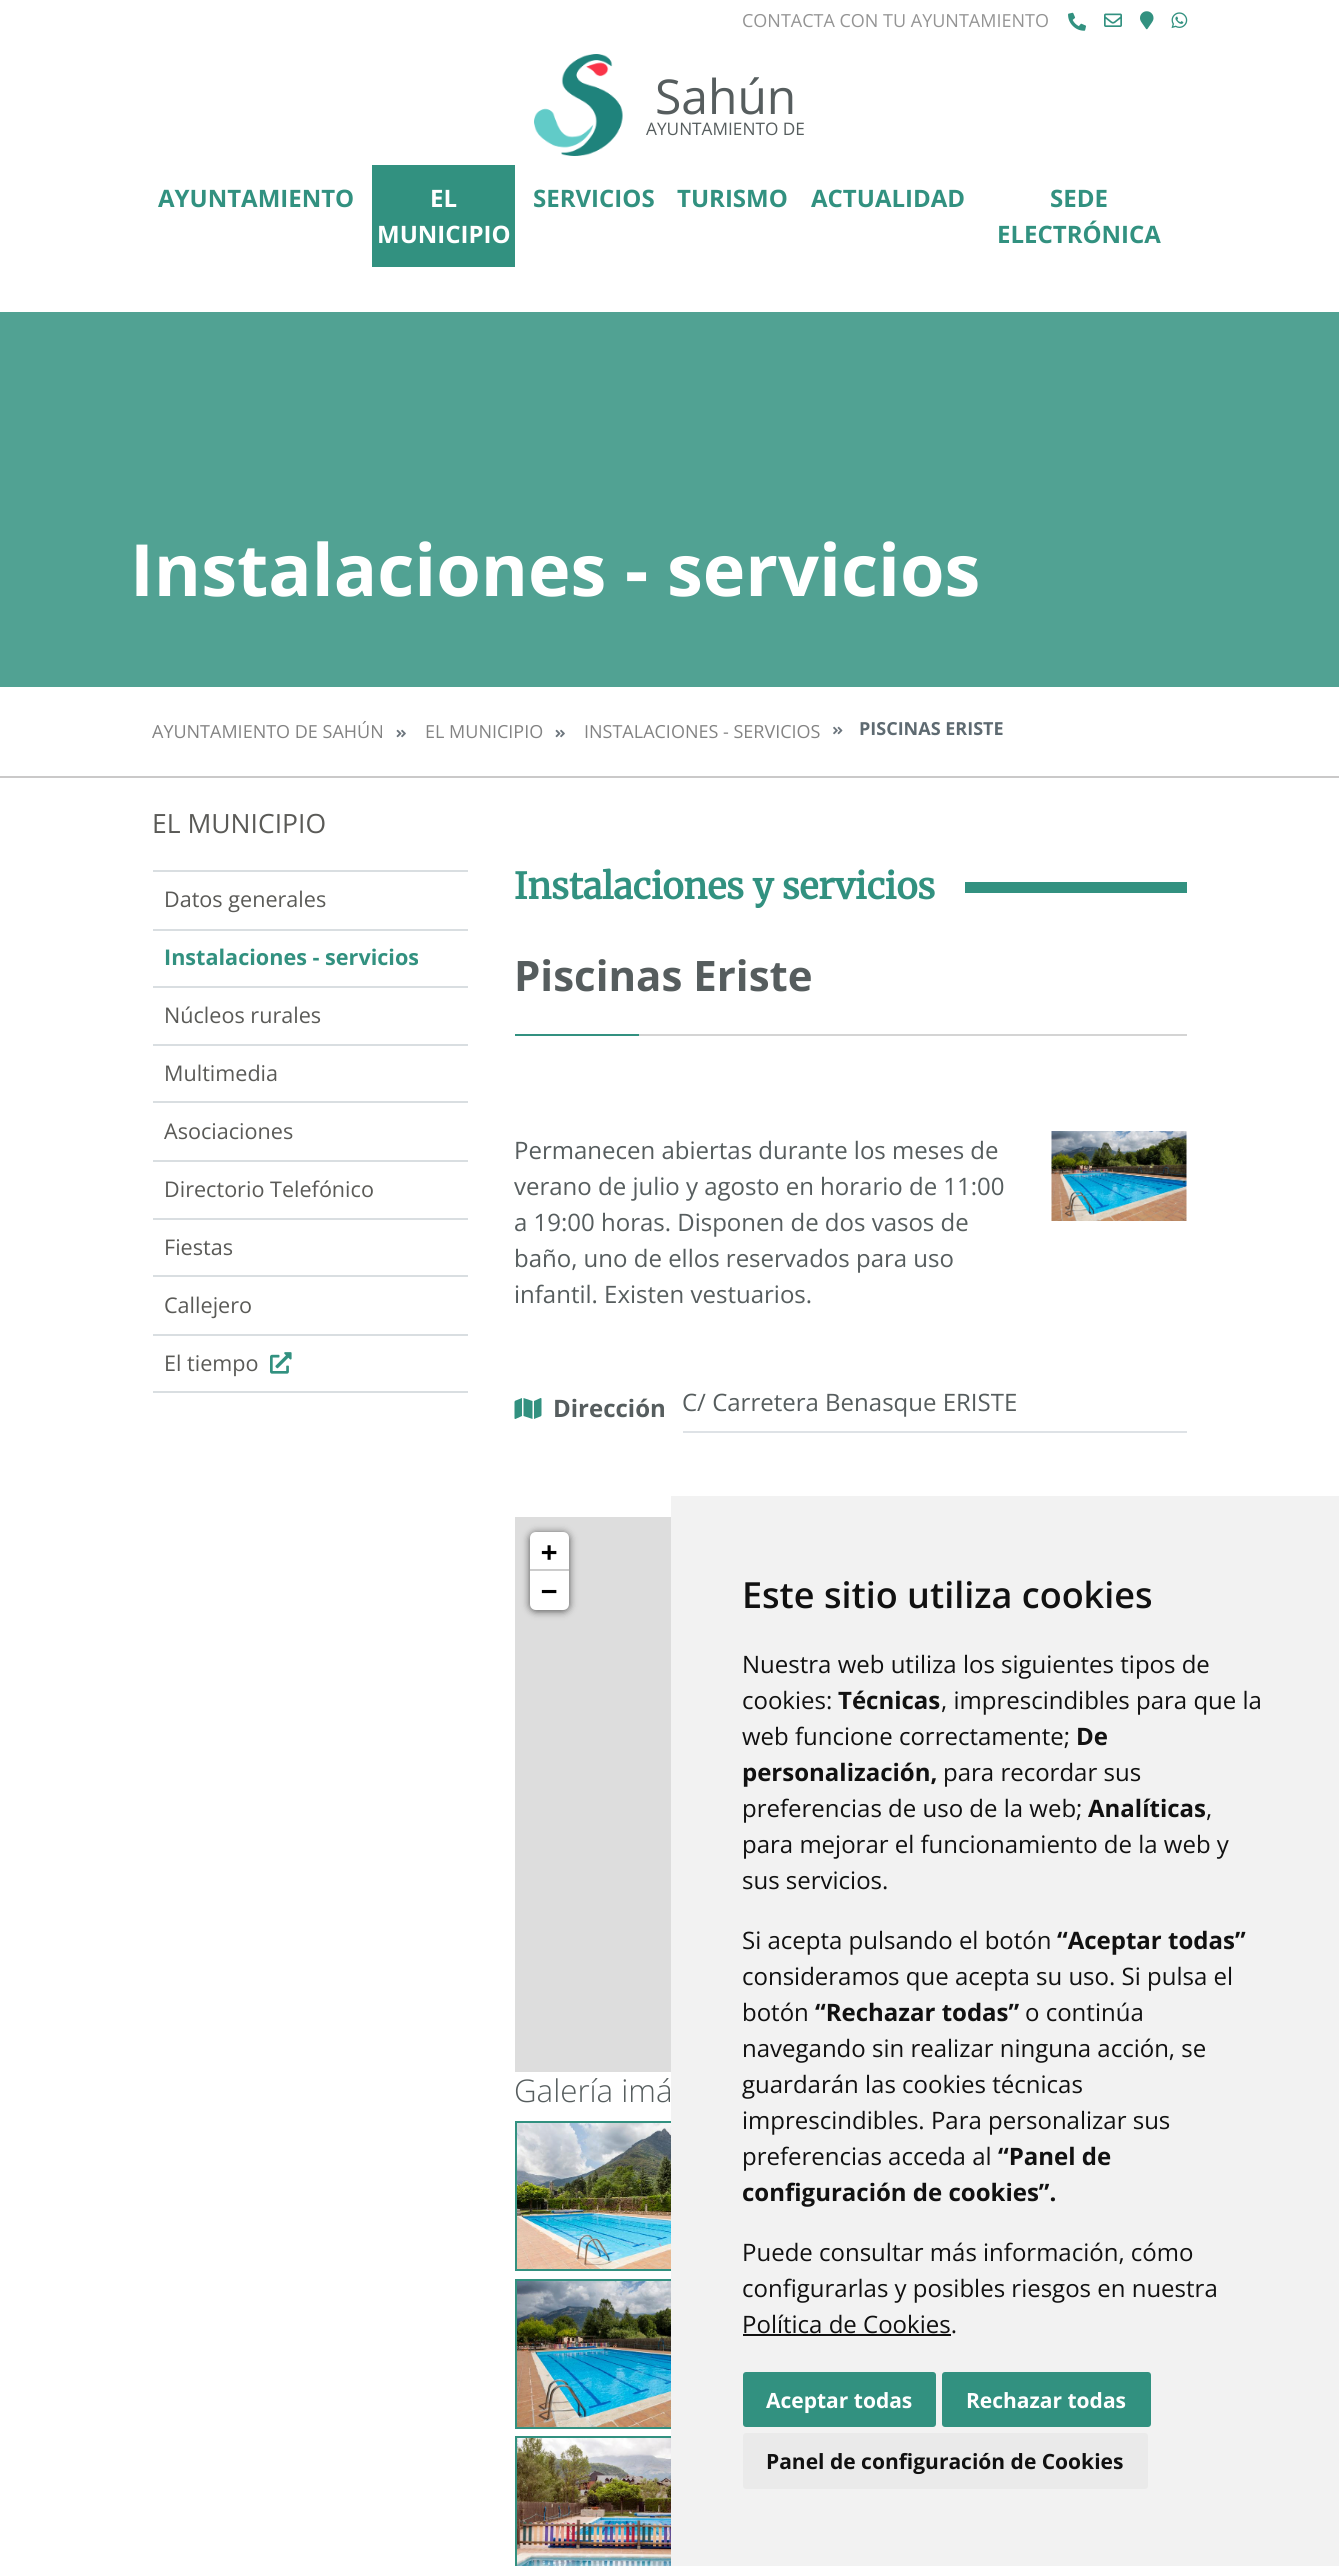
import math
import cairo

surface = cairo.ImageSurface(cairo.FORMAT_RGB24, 1339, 2566)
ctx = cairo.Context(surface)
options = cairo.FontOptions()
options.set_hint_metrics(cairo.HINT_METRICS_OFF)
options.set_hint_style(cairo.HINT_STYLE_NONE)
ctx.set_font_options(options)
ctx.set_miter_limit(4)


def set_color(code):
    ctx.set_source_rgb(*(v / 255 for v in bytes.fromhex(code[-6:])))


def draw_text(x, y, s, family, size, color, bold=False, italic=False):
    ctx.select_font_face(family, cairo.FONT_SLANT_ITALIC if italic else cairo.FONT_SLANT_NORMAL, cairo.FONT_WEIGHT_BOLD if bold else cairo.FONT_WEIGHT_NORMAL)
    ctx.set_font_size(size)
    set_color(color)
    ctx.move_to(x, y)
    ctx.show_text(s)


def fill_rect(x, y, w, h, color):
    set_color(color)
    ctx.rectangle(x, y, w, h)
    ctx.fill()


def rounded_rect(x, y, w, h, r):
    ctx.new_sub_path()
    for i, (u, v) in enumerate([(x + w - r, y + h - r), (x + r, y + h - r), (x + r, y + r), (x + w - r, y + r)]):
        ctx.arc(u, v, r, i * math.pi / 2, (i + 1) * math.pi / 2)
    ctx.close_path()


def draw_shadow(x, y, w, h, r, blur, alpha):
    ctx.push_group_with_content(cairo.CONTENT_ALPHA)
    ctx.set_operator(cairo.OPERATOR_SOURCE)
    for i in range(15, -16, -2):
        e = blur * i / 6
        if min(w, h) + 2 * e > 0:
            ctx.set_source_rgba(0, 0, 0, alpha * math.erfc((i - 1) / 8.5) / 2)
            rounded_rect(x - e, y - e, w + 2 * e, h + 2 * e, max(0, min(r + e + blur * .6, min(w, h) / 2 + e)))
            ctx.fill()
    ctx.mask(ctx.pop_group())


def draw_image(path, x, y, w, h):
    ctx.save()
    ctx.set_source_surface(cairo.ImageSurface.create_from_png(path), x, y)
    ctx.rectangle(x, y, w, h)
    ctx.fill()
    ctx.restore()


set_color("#ffffff")
ctx.paint()
draw_text(742, 27, "CONTACTA CON TU AYUNTAMIENTO", "Open Sans", 18, "#949494")
draw_image("assets/img1.png", 1068, 12, 18, 19)
draw_image("assets/img2.png", 1104, 13, 18, 14)
draw_image("assets/img3.png", 1140, 11, 14, 19)
draw_image("assets/img4.png", 1171, 12, 17, 17)
draw_image("assets/img5.png", 534, 54, 89, 102)
draw_text(655, 114, "Sahún", "Open Sans", 48, "#565d5e")
draw_text(646, 135, "AYUNTAMIENTO DE", "Open Sans", 17.25, "#565d5e")
draw_text(158, 207, "AYUNTAMIENTO", "Open Sans", 24, "#329180", bold=True)
fill_rect(372, 165, 143, 102, "#329180")
draw_text(430, 207, "EL", "Open Sans", 24, "#ffffff", bold=True)
draw_text(377, 243, "MUNICIPIO", "Open Sans", 24, "#ffffff", bold=True)
draw_text(533, 207, "SERVICIOS", "Open Sans", 24, "#329180", bold=True)
draw_text(677, 207, "TURISMO", "Open Sans", 24, "#329180", bold=True)
draw_text(811, 207, "ACTUALIDAD", "Open Sans", 24, "#329180", bold=True)
draw_text(1050, 207, "SEDE", "Open Sans", 24, "#329180", bold=True)
draw_text(997, 243, "ELECTRÓNICA", "Open Sans", 24, "#329180", bold=True)
fill_rect(0, 312, 1339, 375, "#51a293")
draw_text(130, 596, "Instalaciones - servicios", "Open Sans", 72, "#ffffff", bold=True)
fill_rect(0, 776, 1339, 2, "#cac9c9")
draw_text(152, 738, "AYUNTAMIENTO DE SAHÚN", "Open Sans", 18, "#838383")
draw_image("assets/img6.png", 396, 729, 10, 9)
draw_text(425, 738, "EL MUNICIPIO", "Open Sans", 18, "#838383")
draw_image("assets/img6.png", 555, 729, 10, 9)
draw_text(584, 738, "INSTALACIONES - SERVICIOS", "Open Sans", 18, "#838383")
draw_image("assets/img7.png", 833, 726, 10, 9)
draw_text(859, 735, "PISCINAS ERISTE", "Open Sans", 18, "#5e6a71", bold=True)
fill_rect(153, 870, 315, 2, "#d9dee1")
draw_text(152, 833, "EL MUNICIPIO", "Open Sans", 26.5, "#5a5a57")
fill_rect(153, 929, 315, 2, "#d9dee1")
draw_text(164, 907, "Datos generales", "Open Sans", 21.6, "#5a5a57")
fill_rect(153, 986, 315, 2, "#d9dee1")
draw_text(164, 965, "Instalaciones - servicios", "Open Sans", 21.6, "#329180", bold=True)
fill_rect(153, 1044, 315, 2, "#d9dee1")
draw_text(164, 1023, "Núcleos rurales", "Open Sans", 21.6, "#5a5a57")
fill_rect(153, 1101, 315, 2, "#d9dee1")
draw_text(164, 1081, "Multimedia", "Open Sans", 21.6, "#5a5a57")
fill_rect(153, 1160, 315, 2, "#d9dee1")
draw_text(164, 1139, "Asociaciones", "Open Sans", 21.6, "#5a5a57")
fill_rect(153, 1218, 315, 2, "#d9dee1")
draw_text(164, 1197, "Directorio Telefónico", "Open Sans", 21.6, "#5a5a57")
fill_rect(153, 1275, 315, 2, "#d9dee1")
draw_text(164, 1255, "Fiestas", "Open Sans", 21.6, "#5a5a57")
fill_rect(153, 1334, 315, 2, "#d9dee1")
draw_text(164, 1313, "Callejero", "Open Sans", 21.6, "#5a5a57")
fill_rect(153, 1391, 315, 2, "#d9dee1")
draw_text(164, 1371, "El tiempo", "Open Sans", 21.6, "#5a5a57")
draw_image("assets/img8.png", 270, 1352, 22, 22)
draw_text(514, 899, "Instalaciones y servicios", "Merriweather", 36, "#329180", bold=True)
fill_rect(965, 882, 222, 11, "#329180")
draw_text(514, 991, "Piscinas Eriste", "Open Sans", 42, "#565d5e", bold=True)
fill_rect(515, 1034, 124, 2, "#329180")
fill_rect(639, 1034, 548, 2, "#d4d4d4")
draw_text(514, 1159, "Permanecen abiertas durante los meses de", "Open Sans", 24, "#565d5e")
draw_text(514, 1195, "verano de julio y agosto en horario de 11:00", "Open Sans", 24, "#565d5e")
draw_text(514, 1231, "a 19:00 horas. Disponen de dos vasos de", "Open Sans", 24, "#565d5e")
draw_text(514, 1267, "baño, uno de ellos reservados para uso", "Open Sans", 24, "#565d5e")
draw_text(514, 1303, "infantil. Existen vestuarios.", "Open Sans", 24, "#565d5e")
draw_image("assets/img9.png", 1051, 1131, 136, 90)
draw_image("assets/img10.png", 514, 1398, 28, 21)
draw_text(553, 1417, "Dirección", "Open Sans", 24, "#565d5e", bold=True)
fill_rect(683, 1431, 504, 2, "#dee2e6")
draw_text(682, 1411, "C/ Carretera Benasque ERISTE", "Open Sans", 24, "#565d5e")
fill_rect(515, 1517, 156, 555, "#dddddd")
set_color("#000000")
draw_shadow(530, 1533, 39, 78, 6, 4, 0.65)
set_color("#ffffff")
ctx.new_path()
ctx.move_to(536, 1532)
ctx.line_to(563, 1532)
ctx.curve_to(566.5, 1532, 569, 1534.5, 569, 1538)
ctx.line_to(569, 1571)
ctx.line_to(530, 1571)
ctx.line_to(530, 1538)
ctx.curve_to(530, 1534.5, 532.5, 1532, 536, 1532)
ctx.close_path()
ctx.fill()
fill_rect(530, 1569, 39, 2, "#cccccc")
draw_text(541, 1561, "+", "DejaVu Sans Mono", 27, "#000000", bold=True)
set_color("#ffffff")
ctx.new_path()
ctx.move_to(530, 1571)
ctx.line_to(569, 1571)
ctx.line_to(569, 1604)
ctx.curve_to(569, 1607.5, 566.5, 1610, 563, 1610)
ctx.line_to(536, 1610)
ctx.curve_to(532.5, 1610, 530, 1607.5, 530, 1604)
ctx.close_path()
ctx.fill()
draw_text(541, 1600, "−", "DejaVu Sans Mono", 27, "#000000", bold=True)
draw_text(514, 2102, "Galería imá", "Open Sans Light", 31.25, "#565d5e")
draw_image("assets/img11.png", 517, 2123, 154, 146)
ctx.rectangle(516, 2122, 223, 148)
set_color("#329180")
ctx.stroke()
draw_image("assets/img12.png", 517, 2281, 154, 146)
ctx.rectangle(516, 2280, 223, 148)
ctx.stroke()
draw_image("assets/img13.png", 517, 2438, 154, 128)
ctx.rectangle(516, 2437, 223, 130)
ctx.stroke()
fill_rect(671, 1496, 668, 1070, "#f2f2f2")
draw_text(742, 1608, "Este sitio utiliza cookies", "Open Sans SemiBold", 36, "#111111")
draw_text(742, 1673, "Nuestra web utiliza los siguientes tipos de", "Open Sans", 24, "#111111")
draw_text(742, 1709, "cookies:", "Open Sans", 24, "#111111")
draw_text(838, 1709, "Técnicas", "Open Sans", 24, "#111111", bold=True)
draw_text(941, 1709, ", imprescindibles para que la", "Open Sans", 24, "#111111")
draw_text(742, 1745, "web funcione correctamente;", "Open Sans", 24, "#111111")
draw_text(1076, 1745, "De", "Open Sans", 24, "#111111", bold=True)
draw_text(742, 1781, "personalización,", "Open Sans", 24, "#111111", bold=True)
draw_text(943, 1781, "para recordar sus", "Open Sans", 24, "#111111")
draw_text(742, 1817, "preferencias de uso de la web;", "Open Sans", 24, "#111111")
draw_text(1088, 1817, "Analíticas", "Open Sans", 24, "#111111", bold=True)
draw_text(1206, 1817, ",", "Open Sans", 24, "#111111")
draw_text(742, 1853, "para mejorar el funcionamiento de la web y", "Open Sans", 24, "#111111")
draw_text(742, 1889, "sus servicios.", "Open Sans", 24, "#111111")
draw_text(742, 1949, "Si acepta pulsando el botón", "Open Sans", 24, "#111111")
draw_text(1057, 1949, "“Aceptar todas”", "Open Sans", 24, "#111111", bold=True)
draw_text(742, 1985, "consideramos que acepta su uso. Si pulsa el", "Open Sans", 24, "#111111")
draw_text(742, 2021, "botón", "Open Sans", 24, "#111111")
draw_text(815, 2021, "“Rechazar todas”", "Open Sans", 24, "#111111", bold=True)
draw_text(1025, 2021, "o continúa", "Open Sans", 24, "#111111")
draw_text(742, 2057, "navegando sin realizar ninguna acción, se", "Open Sans", 24, "#111111")
draw_text(742, 2093, "guardarán las cookies técnicas", "Open Sans", 24, "#111111")
draw_text(742, 2129, "imprescindibles. Para personalizar sus", "Open Sans", 24, "#111111")
draw_text(742, 2165, "preferencias acceda al", "Open Sans", 24, "#111111")
draw_text(998, 2165, "“Panel de", "Open Sans", 24, "#111111", bold=True)
draw_text(742, 2201, "configuración de cookies”.", "Open Sans", 24, "#111111", bold=True)
draw_text(742, 2261, "Puede consultar más información, cómo", "Open Sans", 24, "#111111")
draw_text(742, 2297, "configurarlas y posibles riesgos en nuestra", "Open Sans", 24, "#111111")
draw_text(742, 2333, "Política de Cookies.", "Open Sans", 24, "#111111")
fill_rect(743, 2334, 208, 2, "#111111")
set_color("#329180")
rounded_rect(743, 2372, 193, 55, 3)
ctx.fill()
draw_text(766, 2408, "Aceptar todas", "Open Sans", 21, "#ffffff", bold=True)
set_color("#329180")
rounded_rect(942, 2372, 209, 55, 3)
ctx.fill()
draw_text(966, 2408, "Rechazar todas", "Open Sans", 21, "#ffffff", bold=True)
set_color("#eaeaea")
rounded_rect(743, 2433, 405, 56, 3)
ctx.fill()
draw_text(766, 2469, "Panel de configuración de Cookies", "Open Sans", 21, "#111111", bold=True)
surface.write_to_png("output.png")
